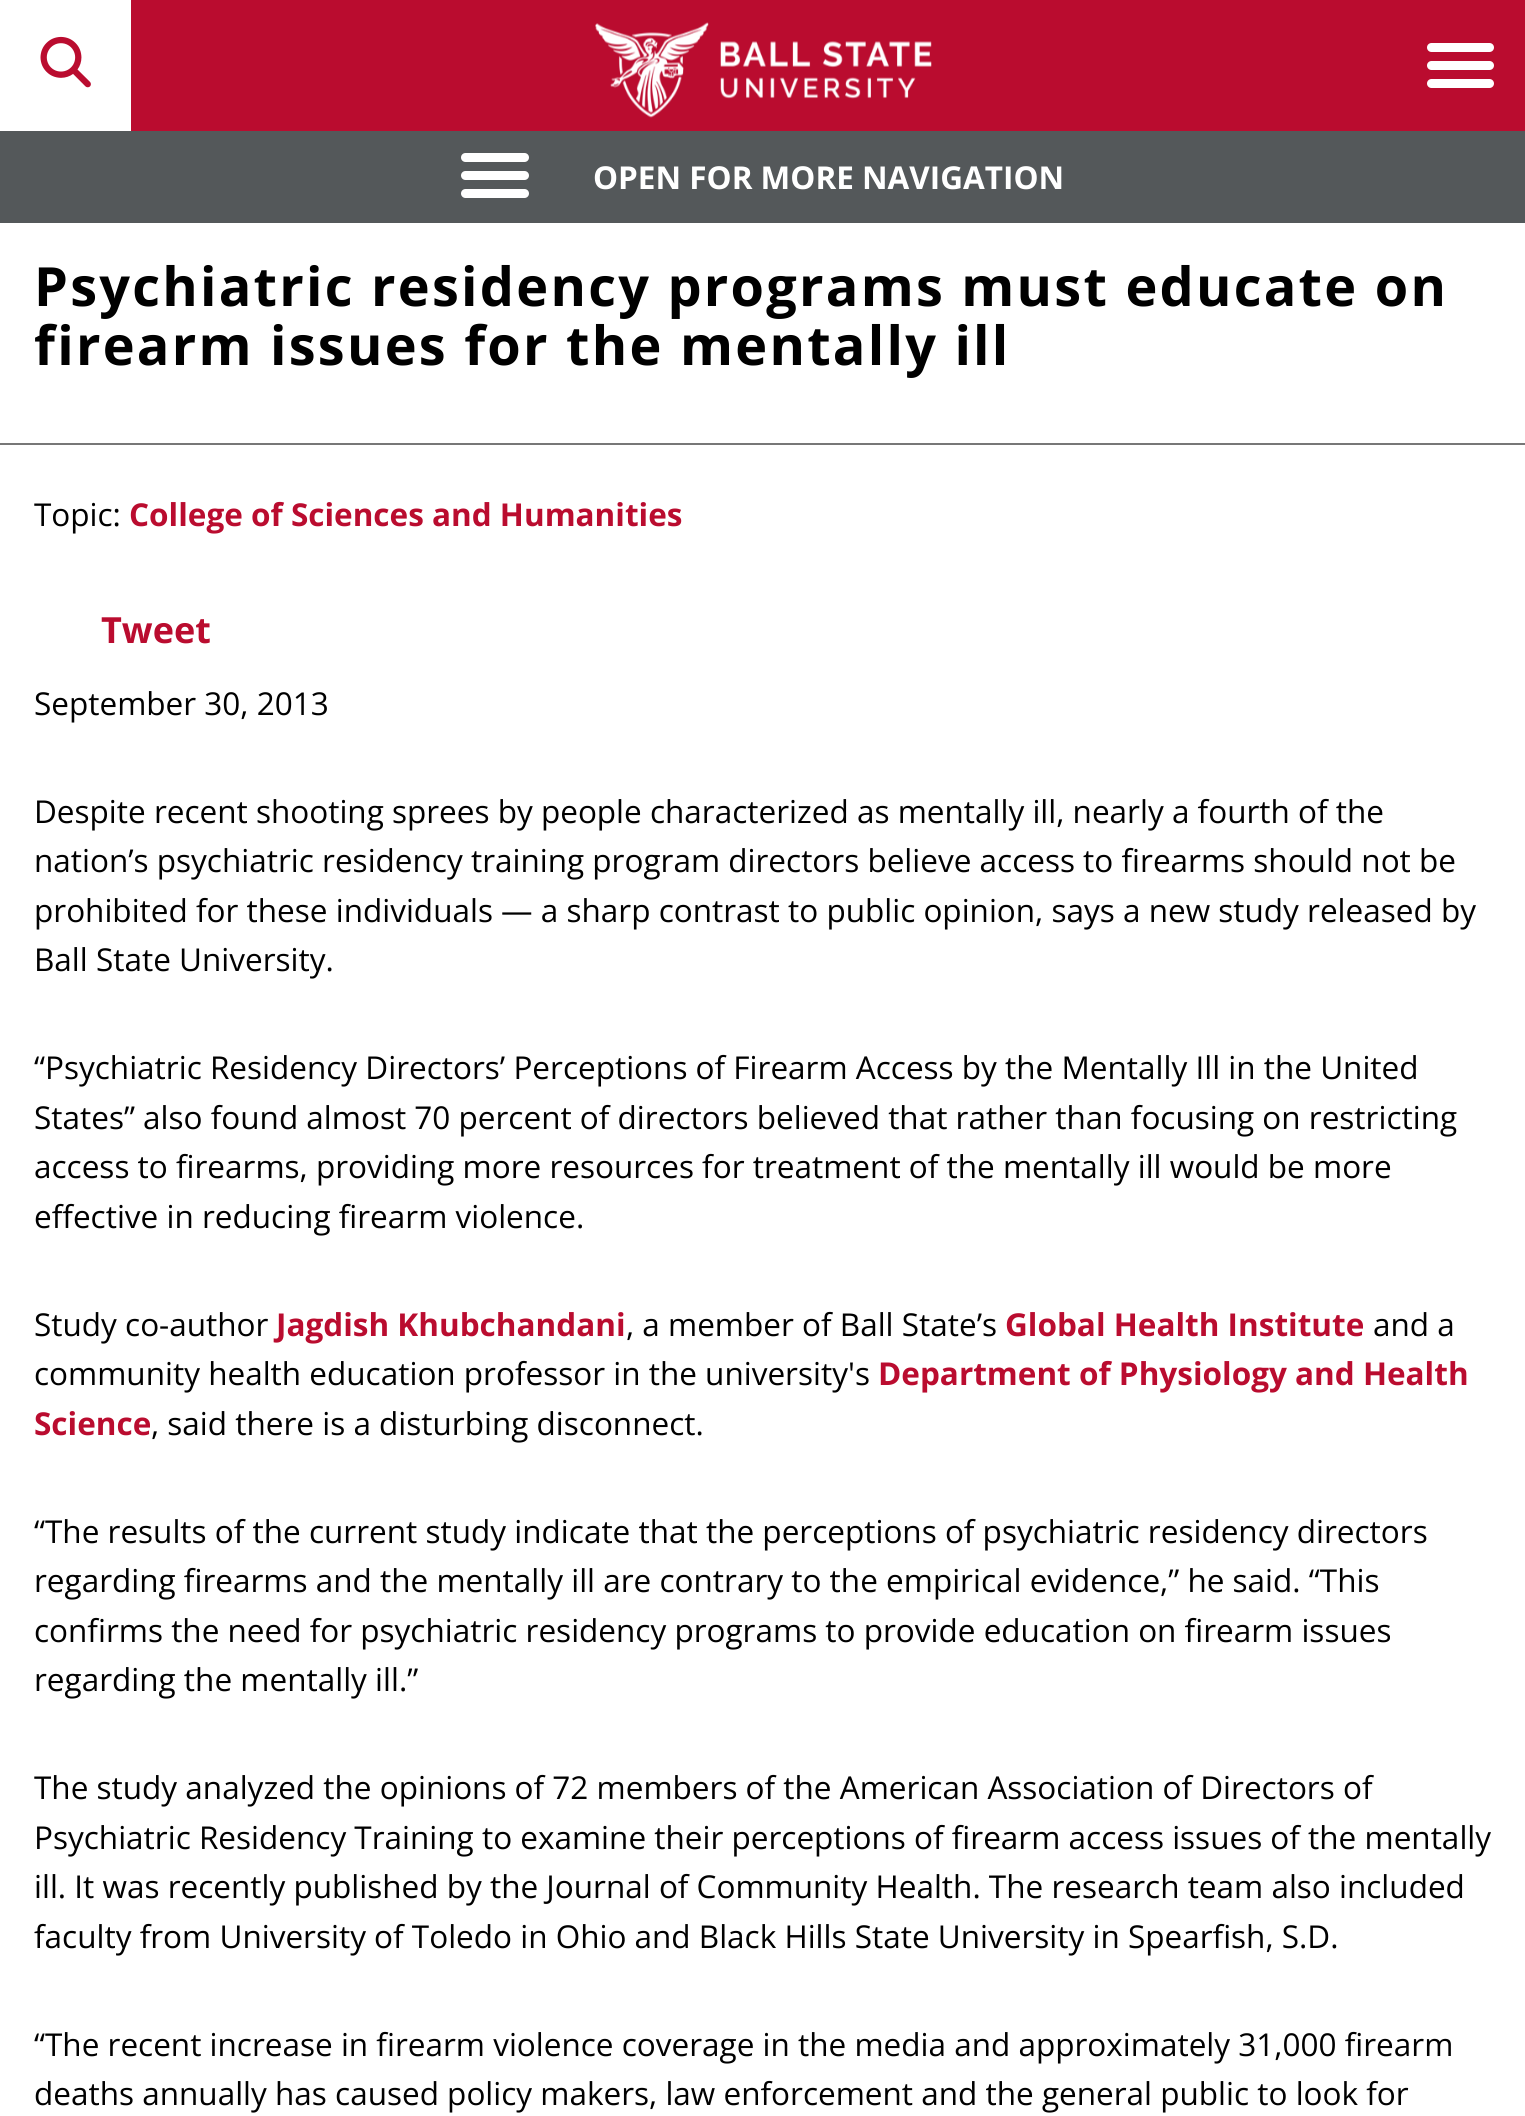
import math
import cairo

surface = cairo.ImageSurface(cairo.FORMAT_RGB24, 1525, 2116)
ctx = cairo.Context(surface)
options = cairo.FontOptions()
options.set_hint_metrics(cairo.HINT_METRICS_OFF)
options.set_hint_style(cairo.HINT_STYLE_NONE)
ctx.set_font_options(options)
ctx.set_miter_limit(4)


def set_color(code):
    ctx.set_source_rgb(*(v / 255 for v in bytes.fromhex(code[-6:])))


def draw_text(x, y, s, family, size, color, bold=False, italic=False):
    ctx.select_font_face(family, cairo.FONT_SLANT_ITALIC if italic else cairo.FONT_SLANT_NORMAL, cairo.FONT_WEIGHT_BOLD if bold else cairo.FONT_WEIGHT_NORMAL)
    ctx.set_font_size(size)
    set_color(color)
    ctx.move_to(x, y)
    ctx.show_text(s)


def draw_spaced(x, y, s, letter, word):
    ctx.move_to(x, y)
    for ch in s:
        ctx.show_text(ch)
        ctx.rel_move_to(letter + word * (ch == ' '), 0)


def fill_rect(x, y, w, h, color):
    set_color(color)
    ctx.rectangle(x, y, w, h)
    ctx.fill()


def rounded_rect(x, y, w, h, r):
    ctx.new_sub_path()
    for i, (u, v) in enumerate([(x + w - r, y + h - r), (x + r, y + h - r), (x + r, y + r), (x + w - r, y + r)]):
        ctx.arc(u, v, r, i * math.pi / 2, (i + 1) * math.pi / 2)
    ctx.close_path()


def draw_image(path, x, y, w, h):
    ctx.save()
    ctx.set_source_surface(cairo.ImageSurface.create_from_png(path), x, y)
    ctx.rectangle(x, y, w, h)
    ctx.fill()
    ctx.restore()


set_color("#ffffff")
ctx.paint()
fill_rect(131, 0, 1394, 131, "#ba0c2f")
draw_image("assets/img1.png", 40, 36, 51, 52)
draw_image("assets/img2.png", 595, 22, 337, 96)
set_color("#ffffff")
rounded_rect(1427, 43, 67, 9, 4.5)
ctx.fill()
rounded_rect(1427, 61, 67, 9, 4.5)
ctx.fill()
rounded_rect(1427, 79, 67, 9, 4.5)
ctx.fill()
fill_rect(0, 443, 1525, 2, "#777777")
fill_rect(0, 131, 1525, 92, "#54585a")
set_color("#ffffff")
rounded_rect(461, 153, 68, 9, 4.5)
ctx.fill()
rounded_rect(461, 171, 68, 9, 4.5)
ctx.fill()
rounded_rect(461, 189, 68, 9, 4.5)
ctx.fill()
draw_text(593, 189, "OPEN FOR MORE NAVIGATION", "Open Sans", 31.5, "#ffffff", bold=True)
ctx.set_font_size(54)
set_color("#000000")
draw_spaced(34, 306, "Psychiatric residency programs must educate on", 2.25, 0)
draw_spaced(34, 365, "firearm issues for the mentally ill", 2.25, 0)
draw_text(34, 526, "Topic:", "Open Sans", 31.5, "#000000")
draw_text(129, 526, "College of Sciences and Humanities", "Open Sans", 31.5, "#ba0c2f", bold=True)
draw_text(101, 643, "Tweet", "Open Sans", 36, "#ba0c2f", bold=True)
draw_text(34, 715, "September 30, 2013", "Open Sans", 31.5, "#000000")
draw_text(34, 823, "Despite recent shooting sprees by people characterized as mentally ill, nearly a fourth of the", "Open Sans", 31.5, "#000000")
draw_text(34, 872, "nation’s psychiatric residency training program directors believe access to firearms should not be", "Open Sans", 31.5, "#000000")
draw_text(34, 922, "prohibited for these individuals — a sharp contrast to public opinion, says a new study released by", "Open Sans", 31.5, "#000000")
draw_text(34, 971, "Ball State University.", "Open Sans", 31.5, "#000000")
draw_text(34, 1079, "“Psychiatric Residency Directors’ Perceptions of Firearm Access by the Mentally Ill in the United", "Open Sans", 31.5, "#000000")
draw_text(34, 1129, "States” also found almost 70 percent of directors believed that rather than focusing on restricting", "Open Sans", 31.5, "#000000")
draw_text(34, 1178, "access to firearms, providing more resources for treatment of the mentally ill would be more", "Open Sans", 31.5, "#000000")
draw_text(34, 1228, "effective in reducing firearm violence.", "Open Sans", 31.5, "#000000")
draw_text(34, 1336, "Study co-author", "Open Sans", 31.5, "#000000")
draw_text(276, 1336, "Jagdish Khubchandani", "Open Sans", 31.5, "#ba0c2f", bold=True)
draw_text(626, 1336, ", a member of Ball State’s", "Open Sans", 31.5, "#000000")
draw_text(1005, 1336, "Global Health Institute", "Open Sans", 31.5, "#ba0c2f", bold=True)
draw_text(1373, 1336, "and a", "Open Sans", 31.5, "#000000")
draw_text(34, 1385, "community health education professor in the university's", "Open Sans", 31.5, "#000000")
draw_text(878, 1385, "Department of Physiology and Health", "Open Sans", 31.5, "#ba0c2f", bold=True)
draw_text(34, 1435, "Science", "Open Sans", 31.5, "#ba0c2f", bold=True)
draw_text(151, 1435, ", said there is a disturbing disconnect.", "Open Sans", 31.5, "#000000")
draw_text(34, 1543, "“The results of the current study indicate that the perceptions of psychiatric residency directors", "Open Sans", 31.5, "#000000")
draw_text(34, 1592, "regarding firearms and the mentally ill are contrary to the empirical evidence,” he said. “This", "Open Sans", 31.5, "#000000")
draw_text(34, 1642, "confirms the need for psychiatric residency programs to provide education on firearm issues", "Open Sans", 31.5, "#000000")
draw_text(34, 1691, "regarding the mentally ill.”", "Open Sans", 31.5, "#000000")
draw_text(34, 1799, "The study analyzed the opinions of 72 members of the American Association of Directors of", "Open Sans", 31.5, "#000000")
draw_text(34, 1849, "Psychiatric Residency Training to examine their perceptions of firearm access issues of the mentally", "Open Sans", 31.5, "#000000")
draw_text(34, 1898, "ill. It was recently published by the Journal of Community Health. The research team also included", "Open Sans", 31.5, "#000000")
draw_text(34, 1948, "faculty from University of Toledo in Ohio and Black Hills State University in Spearfish, S.D.", "Open Sans", 31.5, "#000000")
draw_text(34, 2056, "“The recent increase in firearm violence coverage in the media and approximately 31,000 firearm", "Open Sans", 31.5, "#000000")
draw_text(34, 2105, "deaths annually has caused policy makers, law enforcement and the general public to look for", "Open Sans", 31.5, "#000000")
surface.write_to_png("output.png")
